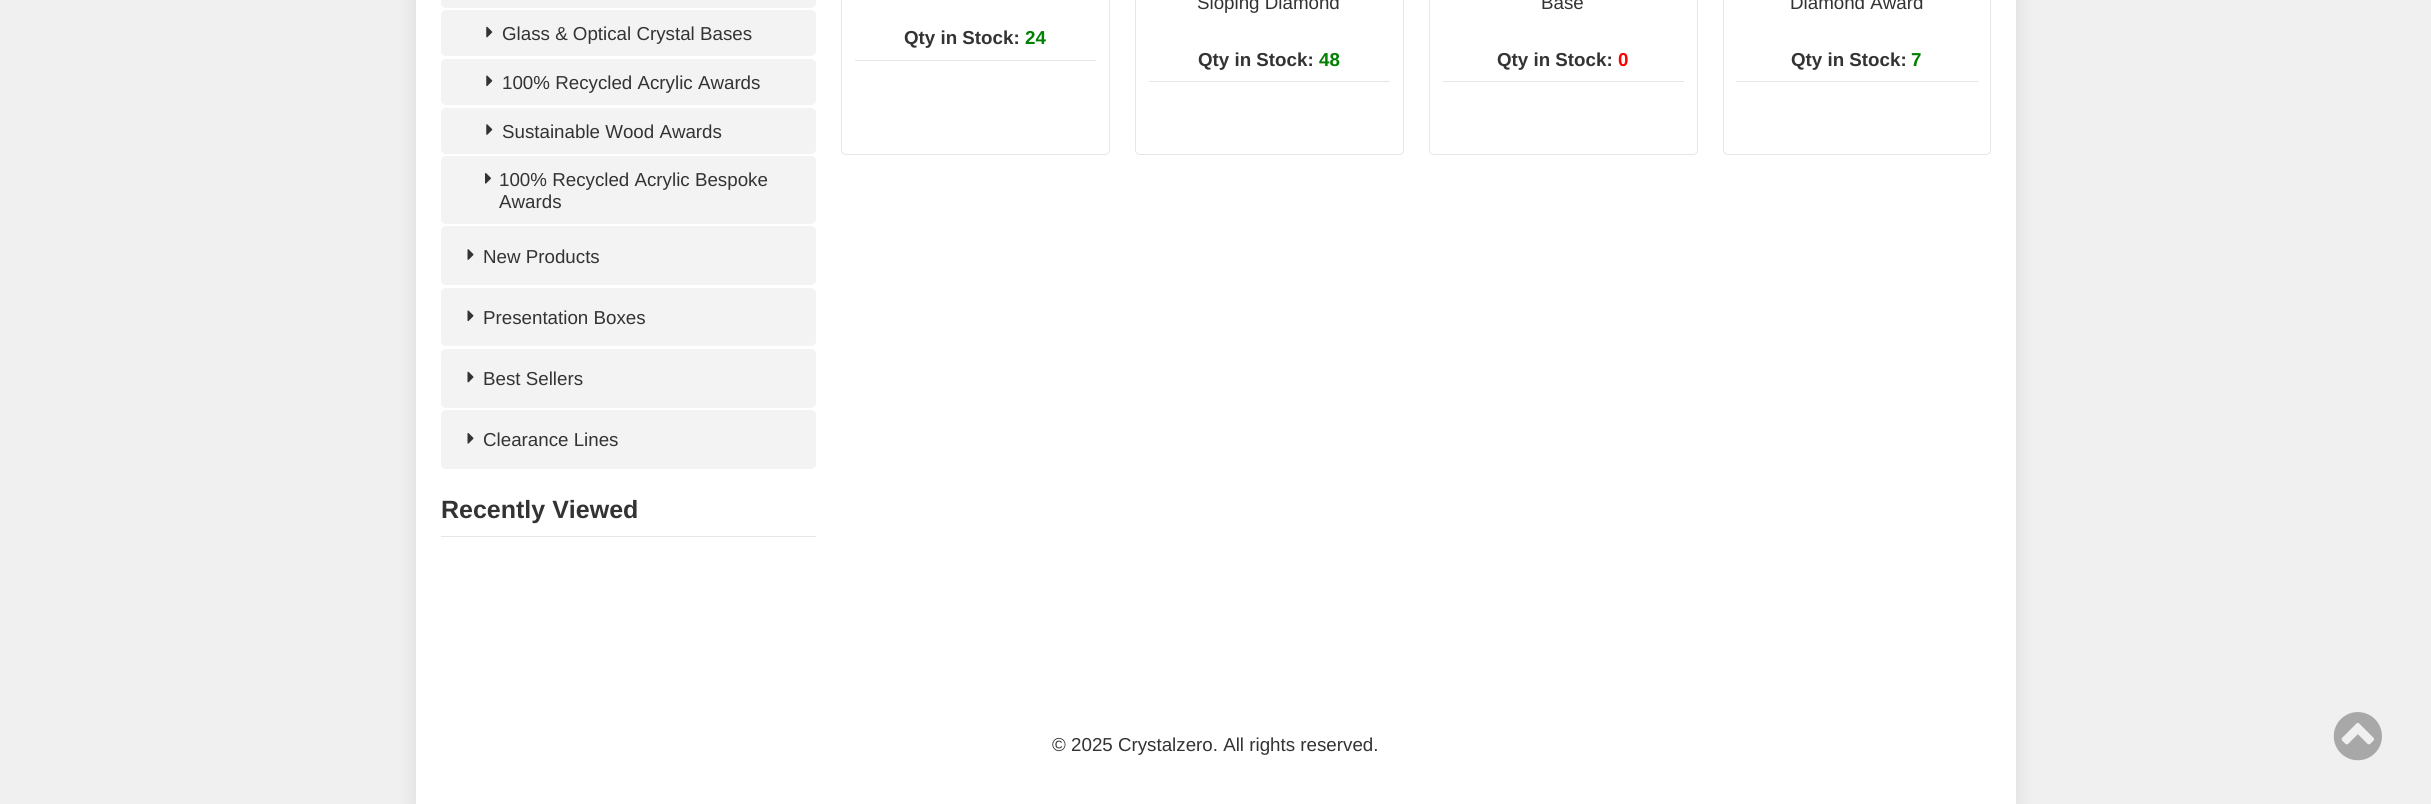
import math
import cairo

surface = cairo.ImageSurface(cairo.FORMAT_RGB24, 2431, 804)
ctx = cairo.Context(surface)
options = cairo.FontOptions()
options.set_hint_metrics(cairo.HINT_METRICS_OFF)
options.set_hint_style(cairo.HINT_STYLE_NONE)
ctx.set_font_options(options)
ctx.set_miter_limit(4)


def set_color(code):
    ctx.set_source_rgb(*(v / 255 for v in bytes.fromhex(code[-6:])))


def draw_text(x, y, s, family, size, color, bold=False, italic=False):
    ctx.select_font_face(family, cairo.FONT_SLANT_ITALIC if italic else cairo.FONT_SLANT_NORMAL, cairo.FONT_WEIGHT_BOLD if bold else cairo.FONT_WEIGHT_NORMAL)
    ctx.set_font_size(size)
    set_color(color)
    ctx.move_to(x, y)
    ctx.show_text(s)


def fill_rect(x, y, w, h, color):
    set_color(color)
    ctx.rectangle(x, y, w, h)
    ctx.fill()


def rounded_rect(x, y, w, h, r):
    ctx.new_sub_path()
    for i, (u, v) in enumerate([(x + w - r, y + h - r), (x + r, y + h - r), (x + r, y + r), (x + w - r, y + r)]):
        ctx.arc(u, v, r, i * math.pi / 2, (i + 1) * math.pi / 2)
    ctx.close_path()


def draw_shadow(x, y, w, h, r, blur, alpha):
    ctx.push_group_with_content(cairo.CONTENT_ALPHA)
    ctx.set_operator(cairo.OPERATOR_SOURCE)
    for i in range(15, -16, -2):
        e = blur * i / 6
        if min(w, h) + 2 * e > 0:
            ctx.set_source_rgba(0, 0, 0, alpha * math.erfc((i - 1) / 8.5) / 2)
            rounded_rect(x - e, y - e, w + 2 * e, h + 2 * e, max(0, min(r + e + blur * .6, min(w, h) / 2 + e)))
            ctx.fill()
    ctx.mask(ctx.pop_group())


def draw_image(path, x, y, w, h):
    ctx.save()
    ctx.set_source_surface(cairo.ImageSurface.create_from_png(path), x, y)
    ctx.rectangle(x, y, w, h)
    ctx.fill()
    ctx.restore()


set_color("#f0f0f0")
ctx.paint()
set_color("#000000")
draw_shadow(416, -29, 1600, 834, 0, 9.5, 0.1)
fill_rect(416, 0, 1600, 804, "#ffffff")
set_color("#f3f3f3")
rounded_rect(441, -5, 375, 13, 5)
ctx.fill()
rounded_rect(441, 10, 375, 46, 5)
ctx.fill()
draw_image("assets/img1.png", 486, 26, 7, 12)
draw_text(502, 40, "Glass & Optical Crystal Bases", "Liberation Sans", 18.75, "#333333")
set_color("#f3f3f3")
rounded_rect(441, 59, 375, 46, 5)
ctx.fill()
draw_image("assets/img2.png", 486, 75, 7, 12)
draw_text(502, 89, "100% Recycled Acrylic Awards", "Liberation Sans", 18.75, "#333333")
set_color("#f3f3f3")
rounded_rect(441, 108, 375, 46, 5)
ctx.fill()
draw_image("assets/img3.png", 486, 124, 7, 11)
draw_text(502, 138, "Sustainable Wood Awards", "Liberation Sans", 18.75, "#333333")
set_color("#f3f3f3")
rounded_rect(441, 156, 375, 68, 5)
ctx.fill()
draw_image("assets/img4.png", 485, 173, 6, 11)
draw_text(499, 186, "100% Recycled Acrylic Bespoke", "Liberation Sans", 18.75, "#333333")
draw_text(499, 208, "Awards", "Liberation Sans", 18.75, "#333333")
set_color("#f3f3f3")
rounded_rect(441, 226, 375, 59, 5)
ctx.fill()
draw_image("assets/img5.png", 467, 249, 7, 11)
draw_text(483, 263, "New Products", "Liberation Sans", 18.75, "#333333")
set_color("#f3f3f3")
rounded_rect(441, 288, 375, 58, 5)
ctx.fill()
draw_image("assets/img6.png", 467, 310, 7, 12)
draw_text(483, 324, "Presentation Boxes", "Liberation Sans", 18.75, "#333333")
set_color("#f3f3f3")
rounded_rect(441, 349, 375, 59, 5)
ctx.fill()
draw_image("assets/img7.png", 467, 371, 7, 12)
draw_text(483, 385, "Best Sellers", "Liberation Sans", 18.75, "#333333")
set_color("#f3f3f3")
rounded_rect(441, 410, 375, 59, 5)
ctx.fill()
draw_image("assets/img8.png", 467, 433, 7, 11)
draw_text(483, 446, "Clearance Lines", "Liberation Sans", 18.75, "#333333")
fill_rect(441, 536, 375, 1, "#e6e6e6")
draw_text(441, 518, "Recently Viewed", "Liberation Sans", 25, "#333333", bold=True)
rounded_rect(841.5, -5.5, 268, 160, 4.5)
set_color("#e6e6e6")
ctx.set_line_width(1)
ctx.stroke()
fill_rect(855, 60, 241, 1, "#e6e6e6")
draw_text(904, 44, "Qty in Stock:", "Liberation Sans", 18.75, "#333333", bold=True)
draw_text(1025, 44, "24", "Liberation Sans", 18.75, "#008000", bold=True)
rounded_rect(1135.5, -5.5, 268, 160, 4.5)
set_color("#e6e6e6")
ctx.stroke()
draw_text(1197, 9, "Sloping Diamond", "Liberation Sans", 18.75, "#333333")
fill_rect(1149, 81, 241, 1, "#e6e6e6")
draw_text(1198, 66, "Qty in Stock:", "Liberation Sans", 18.75, "#333333", bold=True)
draw_text(1319, 66, "48", "Liberation Sans", 18.75, "#008000", bold=True)
rounded_rect(1429.5, -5.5, 268, 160, 4.5)
set_color("#e6e6e6")
ctx.stroke()
draw_text(1541, 9, "Base", "Liberation Sans", 18.75, "#333333")
fill_rect(1443, 81, 241, 1, "#e6e6e6")
draw_text(1497, 66, "Qty in Stock:", "Liberation Sans", 18.75, "#333333", bold=True)
draw_text(1618, 66, "0", "Liberation Sans", 18.75, "#ff0000", bold=True)
rounded_rect(1723.5, -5.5, 267, 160, 4.5)
set_color("#e6e6e6")
ctx.stroke()
draw_text(1790, 9, "Diamond Award", "Liberation Sans", 18.75, "#333333")
fill_rect(1736, 81, 242, 1, "#e6e6e6")
draw_text(1791, 66, "Qty in Stock:", "Liberation Sans", 18.75, "#333333", bold=True)
draw_text(1911, 66, "7", "Liberation Sans", 18.75, "#008000", bold=True)
draw_text(1052, 751, "© 2025 Crystalzero. All rights reserved.", "Liberation Sans", 18.75, "#333333")
draw_image("assets/img9.png", 2333, 712, 49, 49)
surface.write_to_png("output.png")
